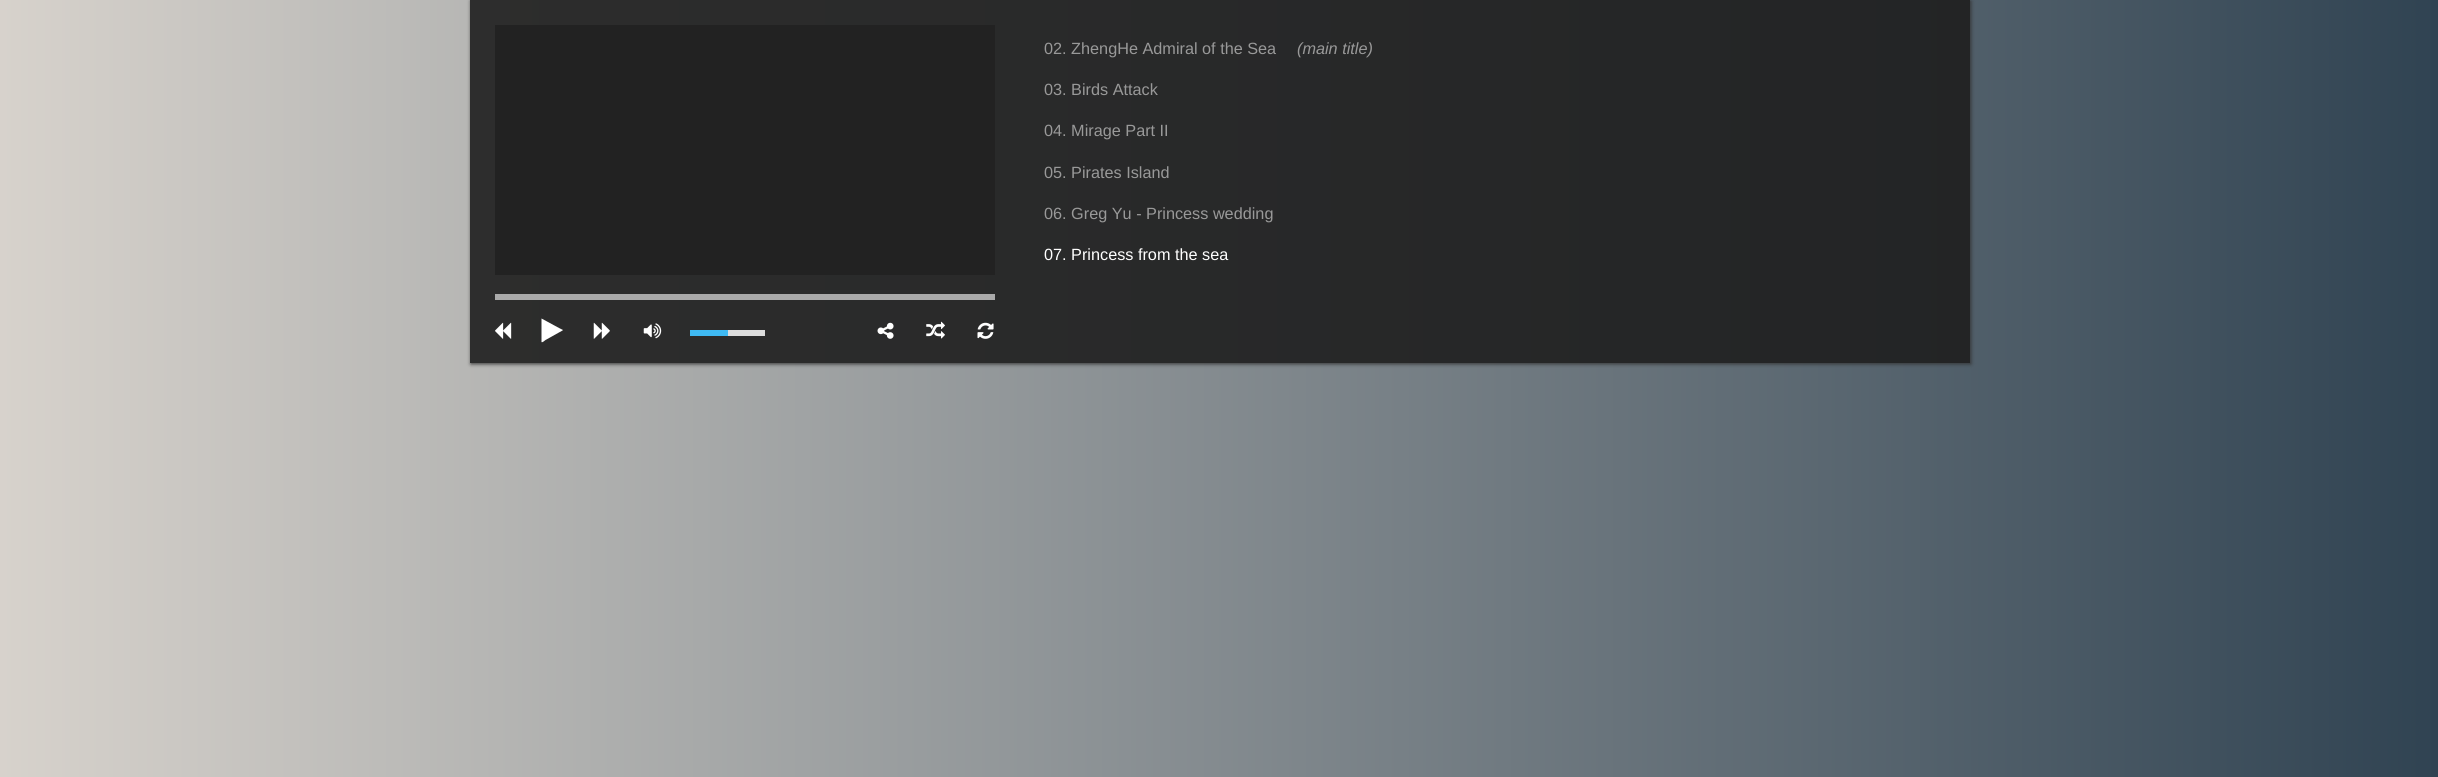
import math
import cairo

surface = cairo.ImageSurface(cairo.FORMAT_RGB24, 2438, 777)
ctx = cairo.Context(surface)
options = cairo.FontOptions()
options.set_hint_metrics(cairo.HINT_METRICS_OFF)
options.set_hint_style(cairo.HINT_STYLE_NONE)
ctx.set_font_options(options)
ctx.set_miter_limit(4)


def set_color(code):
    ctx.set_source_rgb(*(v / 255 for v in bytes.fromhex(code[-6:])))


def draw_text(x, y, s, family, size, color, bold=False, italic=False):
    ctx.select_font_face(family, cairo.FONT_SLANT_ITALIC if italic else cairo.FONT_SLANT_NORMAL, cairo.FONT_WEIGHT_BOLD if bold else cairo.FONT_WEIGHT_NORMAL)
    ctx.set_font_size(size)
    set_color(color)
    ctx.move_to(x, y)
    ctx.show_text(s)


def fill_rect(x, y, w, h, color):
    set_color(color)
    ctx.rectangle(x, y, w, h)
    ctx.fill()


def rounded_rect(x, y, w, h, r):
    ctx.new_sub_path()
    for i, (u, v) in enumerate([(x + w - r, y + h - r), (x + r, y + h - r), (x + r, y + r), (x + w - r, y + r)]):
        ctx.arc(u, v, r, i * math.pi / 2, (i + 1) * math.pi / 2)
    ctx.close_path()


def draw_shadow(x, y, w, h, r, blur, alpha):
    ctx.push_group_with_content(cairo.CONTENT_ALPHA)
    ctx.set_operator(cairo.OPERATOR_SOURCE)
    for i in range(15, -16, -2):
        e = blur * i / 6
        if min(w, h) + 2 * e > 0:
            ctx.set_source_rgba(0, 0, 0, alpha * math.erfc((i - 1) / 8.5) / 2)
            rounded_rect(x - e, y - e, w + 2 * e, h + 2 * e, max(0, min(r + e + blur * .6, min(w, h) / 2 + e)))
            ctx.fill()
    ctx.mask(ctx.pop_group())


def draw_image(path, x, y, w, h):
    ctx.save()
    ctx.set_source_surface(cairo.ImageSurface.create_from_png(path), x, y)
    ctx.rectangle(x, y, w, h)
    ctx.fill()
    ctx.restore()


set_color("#ffffff")
ctx.paint()
gradient = cairo.LinearGradient(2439, 181, 0, 181)
gradient.add_color_stop_rgba(0, 0.188, 0.263, 0.322, 1)
gradient.add_color_stop_rgba(1, 0.843, 0.824, 0.8, 1)
ctx.set_source(gradient)
ctx.rectangle(0, 0, 2438, 777)
ctx.fill()
ctx.save()
ctx.set_fill_rule(cairo.FILL_RULE_EVEN_ODD)
ctx.new_path()
ctx.move_to(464, 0)
ctx.line_to(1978, 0)
ctx.line_to(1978, 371)
ctx.line_to(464, 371)
ctx.close_path()
ctx.move_to(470, 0)
ctx.line_to(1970, 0)
ctx.line_to(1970, 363)
ctx.line_to(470, 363)
ctx.close_path()
ctx.clip()
set_color("#333333")
draw_shadow(471, 1, 1500, 363, 0, 2, 1)
ctx.restore()
ctx.set_source_rgba(0.118, 0.118, 0.118, 0.9)
ctx.rectangle(470, 0, 1500, 363)
ctx.fill()
fill_rect(495, 25, 500, 250, "#222222")
fill_rect(495, 294, 500, 6, "#aaaaaa")
draw_image("assets/img1.png", 495, 322, 17, 17)
set_color("#ffffff")
ctx.new_path()
ctx.move_to(562.5, 330.5)
ctx.line_to(545.5, 340)
ctx.curve_to(545, 340.5, 542, 343, 541.5, 342)
ctx.line_to(541.5, 318.5)
ctx.line_to(559, 328)
ctx.line_to(563, 330)
ctx.close_path()
ctx.fill()
draw_image("assets/img2.png", 593, 322, 17, 17)
draw_image("assets/img3.png", 643, 323, 19, 16)
fill_rect(690, 330, 38, 6, "#3fbaf3")
fill_rect(728, 330, 37, 6, "#dddddd")
draw_image("assets/img4.png", 877, 322, 17, 17)
draw_image("assets/img5.png", 926, 321, 19, 18)
draw_image("assets/img6.png", 977, 322, 17, 17)
draw_text(1044, 54, "02. ZhengHe Admiral of the Sea", "Liberation Sans", 16.25, "#999999")
draw_text(1297, 54, "(main title)", "Liberation Sans", 16.25, "#999999", italic=True)
draw_text(1044, 95, "03. Birds Attack", "Liberation Sans", 16.25, "#999999")
draw_text(1044, 136, "04. Mirage Part II", "Liberation Sans", 16.25, "#999999")
draw_text(1044, 178, "05. Pirates Island", "Liberation Sans", 16.25, "#999999")
draw_text(1044, 219, "06. Greg Yu - Princess wedding", "Liberation Sans", 16.25, "#999999")
draw_text(1044, 260, "07. Princess from the sea", "Liberation Sans", 16.25, "#ffffff")
surface.write_to_png("output.png")
